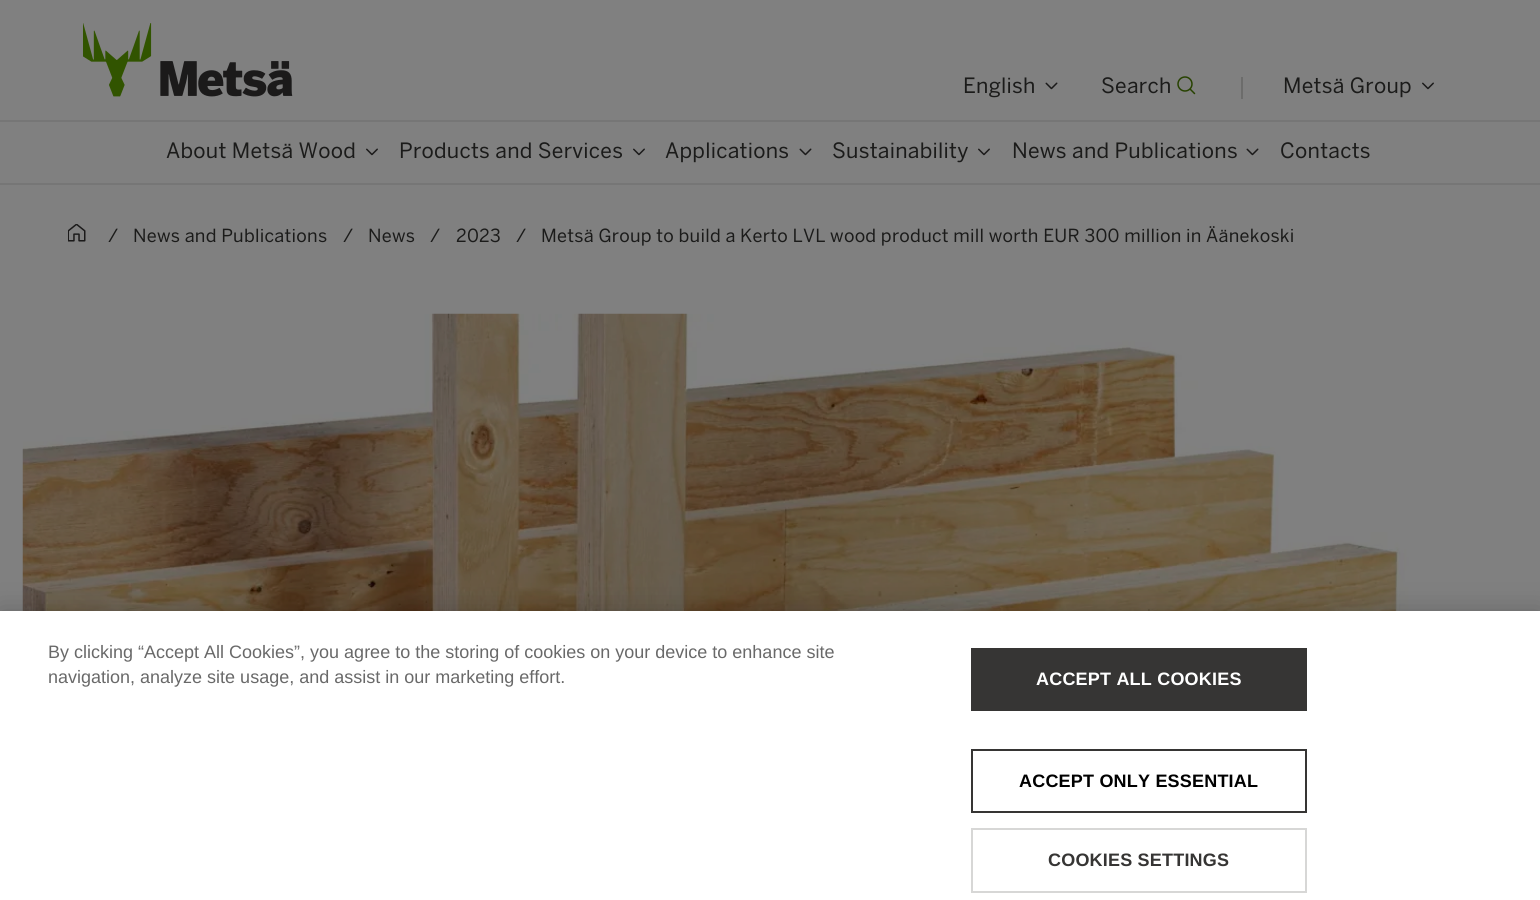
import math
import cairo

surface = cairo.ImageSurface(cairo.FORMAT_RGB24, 1540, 900)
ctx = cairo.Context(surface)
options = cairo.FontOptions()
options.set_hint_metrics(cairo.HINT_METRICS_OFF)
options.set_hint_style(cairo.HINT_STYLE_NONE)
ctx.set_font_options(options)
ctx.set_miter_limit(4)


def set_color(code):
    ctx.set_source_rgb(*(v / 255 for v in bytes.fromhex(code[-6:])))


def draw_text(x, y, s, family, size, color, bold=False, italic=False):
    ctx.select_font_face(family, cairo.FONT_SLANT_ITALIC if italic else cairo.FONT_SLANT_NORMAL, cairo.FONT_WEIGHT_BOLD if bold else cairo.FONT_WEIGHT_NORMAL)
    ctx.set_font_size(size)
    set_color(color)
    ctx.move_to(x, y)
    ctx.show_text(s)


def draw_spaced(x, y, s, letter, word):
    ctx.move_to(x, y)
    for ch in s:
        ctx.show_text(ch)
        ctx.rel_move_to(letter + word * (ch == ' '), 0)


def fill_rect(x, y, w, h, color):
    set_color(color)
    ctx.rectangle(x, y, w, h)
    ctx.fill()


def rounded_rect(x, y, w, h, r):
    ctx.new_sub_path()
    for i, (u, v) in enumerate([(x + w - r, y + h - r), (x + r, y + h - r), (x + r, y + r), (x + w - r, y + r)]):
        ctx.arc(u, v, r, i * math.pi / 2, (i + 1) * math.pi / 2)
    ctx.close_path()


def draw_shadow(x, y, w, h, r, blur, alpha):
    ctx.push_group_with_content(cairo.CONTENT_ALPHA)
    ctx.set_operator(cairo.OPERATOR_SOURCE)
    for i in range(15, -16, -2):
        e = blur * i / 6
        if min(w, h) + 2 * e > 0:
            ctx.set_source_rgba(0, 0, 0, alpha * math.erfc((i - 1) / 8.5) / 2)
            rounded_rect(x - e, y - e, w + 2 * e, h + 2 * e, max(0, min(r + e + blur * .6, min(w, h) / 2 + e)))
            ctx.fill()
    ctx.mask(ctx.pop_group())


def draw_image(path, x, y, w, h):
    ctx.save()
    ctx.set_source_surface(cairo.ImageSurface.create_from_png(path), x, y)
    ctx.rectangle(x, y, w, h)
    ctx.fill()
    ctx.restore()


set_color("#808080")
ctx.paint()
fill_rect(0, 120, 1540, 2, "#767676")
draw_image("assets/img1.png", 83, 23, 210, 74)
ctx.select_font_face("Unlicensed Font")
ctx.set_font_size(21)
set_color("#1b1b1a")
draw_spaced(963, 93, "English", 0.25, 0)
draw_image("assets/img2.png", 1045, 82, 13, 8)
draw_spaced(1101, 93, "Search", 0.25, 0)
draw_image("assets/img3.png", 1177, 76, 19, 19)
fill_rect(1241, 77, 2, 22, "#6c6c6b")
set_color("#1b1b1a")
draw_spaced(1283, 93, "Metsä Group", 0.25, 0)
draw_image("assets/img4.png", 1422, 82, 12, 8)
fill_rect(0, 183, 1540, 2, "#767676")
set_color("#1b1b1a")
draw_spaced(166, 158, "About Metsä Wood", 0.25, 0)
draw_image("assets/img4.png", 366, 148, 12, 8)
draw_spaced(399, 158, "Products and Services", 0.25, 0)
draw_image("assets/img4.png", 633, 148, 12, 8)
draw_spaced(665, 158, "Applications", 0.25, 0)
draw_image("assets/img2.png", 799, 148, 13, 8)
draw_spaced(832, 158, "Sustainability", 0.25, 0)
draw_image("assets/img4.png", 978, 148, 12, 8)
draw_spaced(1012, 158, "News and Publications", 0.25, 0)
draw_image("assets/img2.png", 1246, 148, 13, 8)
draw_spaced(1280, 158, "Contacts", 0.25, 0)
draw_image("assets/img5.png", 68, 224, 18, 18)
ctx.set_font_size(18)
draw_spaced(108, 242, "/", 0.25, 0)
draw_spaced(133, 242, "News and Publications", 0.25, 0)
draw_spaced(343, 242, "/", 0.25, 0)
draw_spaced(368, 242, "News", 0.25, 0)
draw_spaced(430, 242, "/", 0.25, 0)
draw_spaced(456, 242, "2023", 0.25, 0)
draw_spaced(516, 242, "/", 0.25, 0)
draw_spaced(541, 242, "Metsä Group to build a Kerto LVL wood product mill worth EUR 300 million in Äänekoski", 0.25, 0)
draw_image("assets/img6.png", 22, 313, 1496, 298)
set_color("#000000")
draw_shadow(0, 611, 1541, 289, 0, 13.5, 0.2)
fill_rect(0, 611, 1540, 289, "#ffffff")
draw_text(48, 658, "By clicking “Accept All Cookies”, you agree to the storing of cookies on your device to enhance site", "Liberation Sans", 18, "#696969")
draw_text(48, 683, "navigation, analyze site usage, and assist in our marketing effort.", "Liberation Sans", 18, "#696969")
fill_rect(971, 648, 336, 63, "#363534")
ctx.select_font_face("Liberation Sans", cairo.FONT_SLANT_NORMAL, cairo.FONT_WEIGHT_BOLD)
set_color("#ffffff")
draw_spaced(1036, 685, "ACCEPT ALL COOKIES", 0.2, 0)
ctx.rectangle(972, 750, 334, 62)
set_color("#363534")
ctx.stroke()
set_color("#000000")
draw_spaced(1019, 787, "ACCEPT ONLY ESSENTIAL", 0.2, 0)
ctx.rectangle(972, 829, 334, 63)
set_color("#d7d7d6")
ctx.stroke()
set_color("#363534")
draw_spaced(1048, 866, "COOKIES SETTINGS", 0.2, 0)
surface.write_to_png("output.png")
